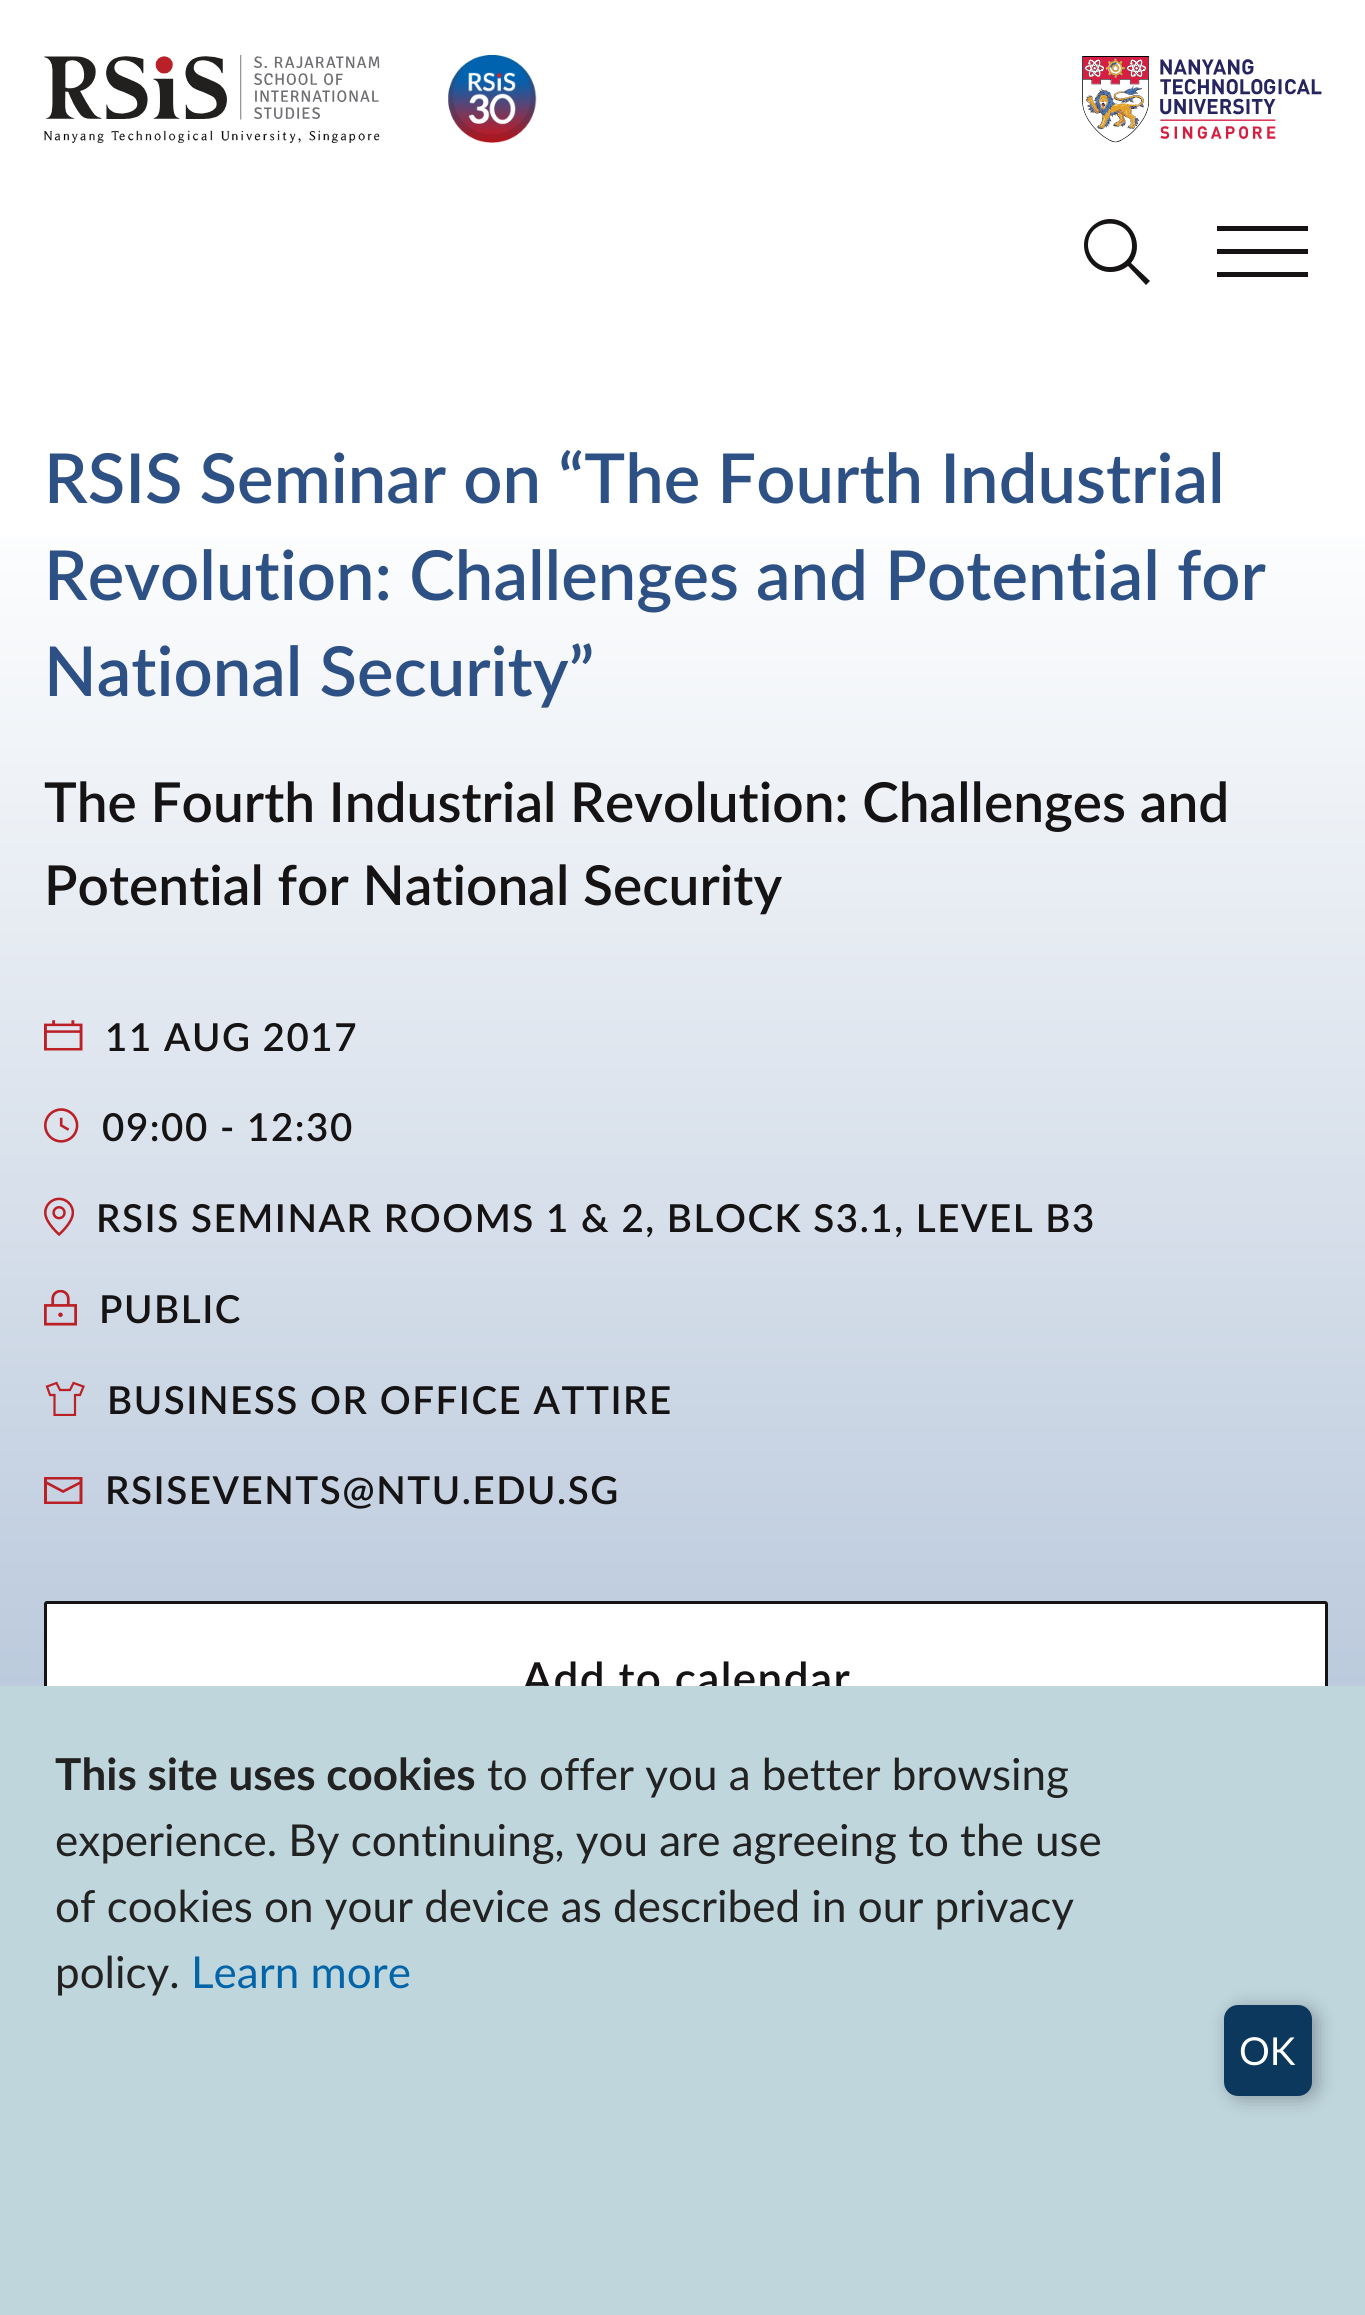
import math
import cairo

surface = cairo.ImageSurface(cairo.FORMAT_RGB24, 1365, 2315)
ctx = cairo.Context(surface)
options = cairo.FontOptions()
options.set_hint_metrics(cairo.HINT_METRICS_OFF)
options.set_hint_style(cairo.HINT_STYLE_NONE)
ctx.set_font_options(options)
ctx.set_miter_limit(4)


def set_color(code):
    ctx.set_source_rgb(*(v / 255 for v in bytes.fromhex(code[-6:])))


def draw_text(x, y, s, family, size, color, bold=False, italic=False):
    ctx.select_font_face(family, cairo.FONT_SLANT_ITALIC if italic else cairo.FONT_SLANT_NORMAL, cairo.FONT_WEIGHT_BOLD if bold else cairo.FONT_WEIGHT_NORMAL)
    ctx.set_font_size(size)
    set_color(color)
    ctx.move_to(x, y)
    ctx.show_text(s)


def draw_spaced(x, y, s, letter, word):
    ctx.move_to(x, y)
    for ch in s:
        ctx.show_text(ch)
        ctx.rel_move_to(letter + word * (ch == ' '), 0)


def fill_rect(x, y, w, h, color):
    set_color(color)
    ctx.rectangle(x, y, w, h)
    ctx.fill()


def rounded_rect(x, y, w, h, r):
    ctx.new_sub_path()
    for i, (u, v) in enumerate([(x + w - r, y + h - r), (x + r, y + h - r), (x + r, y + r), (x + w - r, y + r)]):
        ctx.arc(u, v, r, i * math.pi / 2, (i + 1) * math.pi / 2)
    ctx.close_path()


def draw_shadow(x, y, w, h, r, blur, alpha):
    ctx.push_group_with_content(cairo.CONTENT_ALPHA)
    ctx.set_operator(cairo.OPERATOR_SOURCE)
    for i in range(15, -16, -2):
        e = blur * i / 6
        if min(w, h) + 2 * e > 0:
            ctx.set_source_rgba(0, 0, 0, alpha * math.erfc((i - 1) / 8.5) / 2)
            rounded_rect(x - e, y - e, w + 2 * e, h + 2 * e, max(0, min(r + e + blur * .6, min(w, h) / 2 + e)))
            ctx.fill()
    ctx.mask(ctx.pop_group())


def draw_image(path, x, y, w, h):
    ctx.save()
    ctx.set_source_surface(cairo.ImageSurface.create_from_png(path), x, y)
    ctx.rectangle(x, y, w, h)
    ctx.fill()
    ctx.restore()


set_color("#ffffff")
ctx.paint()
draw_image("assets/img1.png", 44, 55, 336, 88)
draw_image("assets/img2.png", 448, 55, 89, 88)
draw_image("assets/img3.png", 1082, 56, 240, 87)
set_color("#151313")
ctx.set_fill_rule(cairo.FILL_RULE_EVEN_ODD)
ctx.new_path()
ctx.move_to(1110, 219)
ctx.curve_to(1096, 219, 1084, 231, 1084, 245)
ctx.curve_to(1084, 260, 1096, 272, 1110, 272)
ctx.curve_to(1117, 272, 1123, 270, 1128, 266)
ctx.line_to(1146, 285)
ctx.line_to(1150, 281)
ctx.line_to(1131, 263)
ctx.curve_to(1145, 246, 1133, 219, 1110, 219)
ctx.close_path()
ctx.move_to(1088, 245)
ctx.curve_to(1088, 217, 1131, 216, 1132, 245)
ctx.curve_to(1133, 265, 1108, 274, 1095, 261)
ctx.curve_to(1091, 257, 1088, 251, 1088, 245)
ctx.close_path()
ctx.fill()
fill_rect(1217, 226, 91, 5, "#151313")
fill_rect(1217, 249, 91, 5, "#151313")
fill_rect(1217, 272, 91, 5, "#151313")
gradient = cairo.LinearGradient(683, 1887, 683, 338)
gradient.add_color_stop_rgba(0, 0.69, 0.757, 0.843, 1)
gradient.add_color_stop_rgba(0.9, 1, 1, 1, 1)
ctx.set_source(gradient)
ctx.rectangle(0, 537, 1365, 1149)
ctx.fill()
draw_text(44, 503, "RSIS Seminar on “The Fourth Industrial", "Lato SemiBold", 68.75, "#2e5185")
draw_text(44, 600, "Revolution: Challenges and Potential for", "Lato SemiBold", 68.75, "#2e5185")
draw_text(44, 696, "National Security”", "Lato SemiBold", 68.75, "#2e5185")
draw_text(44, 822, "The Fourth Industrial Revolution: Challenges and", "Lato SemiBold", 55, "#151313")
draw_text(44, 905, "Potential for National Security", "Lato SemiBold", 55, "#151313")
draw_image("assets/img4.png", 44, 1020, 39, 31)
ctx.set_font_size(38.5)
draw_spaced(105, 1051, "11 AUG 2017", 1.55, 0)
draw_image("assets/img5.png", 44, 1108, 35, 35)
draw_spaced(102, 1141, "09:00 - 12:30", 1.55, 0)
draw_image("assets/img6.png", 44, 1197, 30, 39)
draw_spaced(96, 1232, "RSIS SEMINAR ROOMS 1 & 2, BLOCK S3.1, LEVEL B3", 1.55, 0)
draw_image("assets/img7.png", 44, 1290, 33, 36)
draw_spaced(99, 1323, "PUBLIC", 1.55, 0)
ctx.save()
ctx.set_fill_rule(cairo.FILL_RULE_WINDING)
ctx.rectangle(44, 1381, 41, 35)
ctx.clip()
ctx.new_path()
ctx.move_to(47, 1386.5)
ctx.line_to(56.5, 1383)
ctx.line_to(60, 1390)
ctx.line_to(70, 1390)
ctx.line_to(73.5, 1383)
ctx.line_to(83.5, 1386.5)
ctx.line_to(80, 1395)
ctx.line_to(75, 1395)
ctx.line_to(75, 1415)
ctx.line_to(54.5, 1415)
ctx.line_to(54.5, 1395)
ctx.line_to(50, 1395)
ctx.close_path()
set_color("#ba2025")
ctx.set_line_width(2.2)
ctx.stroke()
ctx.restore()
draw_spaced(107, 1414, "BUSINESS OR OFFICE ATTIRE", 1.55, 0)
set_color("#ba2025")
ctx.new_path()
ctx.move_to(44, 1477)
ctx.line_to(82.5, 1477)
ctx.line_to(82.5, 1504)
ctx.line_to(44, 1504)
ctx.close_path()
ctx.move_to(47, 1479.5)
ctx.line_to(79.5, 1479.5)
ctx.line_to(79.5, 1481.5)
ctx.line_to(63, 1490)
ctx.line_to(47, 1481.5)
ctx.close_path()
ctx.move_to(79.5, 1484.5)
ctx.line_to(79.5, 1501.5)
ctx.line_to(47, 1501.5)
ctx.line_to(47, 1484.5)
ctx.line_to(63, 1493)
ctx.close_path()
ctx.fill()
set_color("#151313")
draw_spaced(105, 1504, "RSISEVENTS@NTU.EDU.SG", 1.55, 0)
set_color("#ffffff")
rounded_rect(45.5, 1602.5, 1281, 151, 1.5)
ctx.fill_preserve()
set_color("#151313")
ctx.set_line_width(3)
ctx.stroke()
ctx.set_font_size(44)
draw_spaced(522, 1694, "Add to calendar", 1.4, 0)
fill_rect(0, 1686, 1365, 629, "#bfd6dd")
draw_text(55, 1790, "This site uses cookies", "Lato", 44, "#222222", bold=True)
draw_text(487, 1790, "to offer you a better browsing", "Lato", 44, "#222222")
draw_text(55, 1856, "experience. By continuing, you are agreeing to the use", "Lato", 44, "#222222")
draw_text(55, 1922, "of cookies on your device as described in our privacy", "Lato", 44, "#222222")
draw_text(55, 1988, "policy.", "Lato", 44, "#222222")
draw_text(191, 1988, "Learn more", "Lato", 44, "#0364a8")
set_color("#000000")
draw_shadow(1229, 2008, 88, 90, 14, 9.5, 0.31)
set_color("#0b385c")
rounded_rect(1224, 2005, 88, 91, 14)
ctx.fill()
draw_text(1239, 2065, "OK", "Lato", 38.5, "#ffffff")
surface.write_to_png("output.png")
